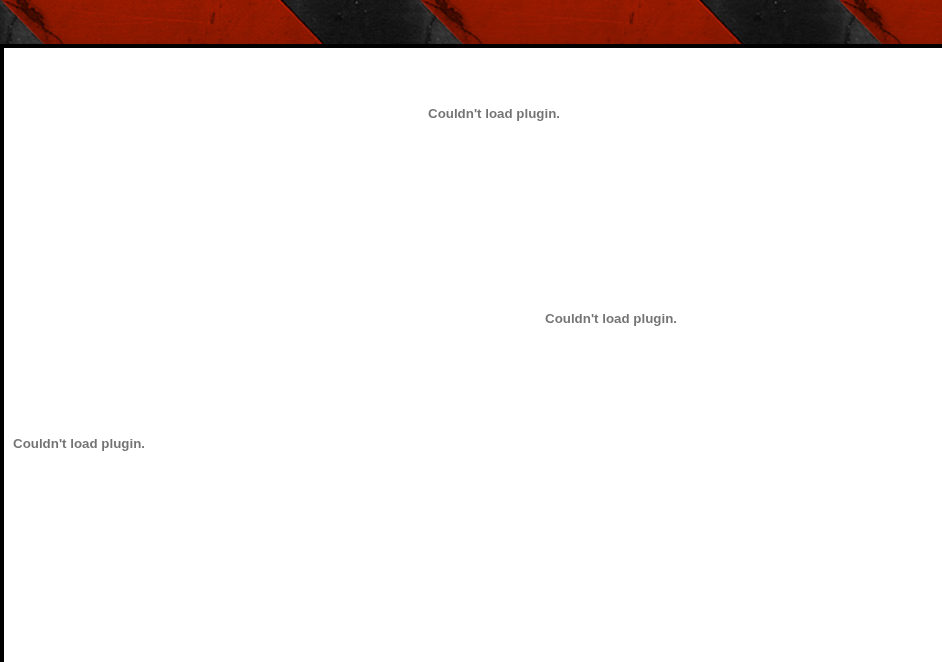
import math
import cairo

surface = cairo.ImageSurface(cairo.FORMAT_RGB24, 942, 662)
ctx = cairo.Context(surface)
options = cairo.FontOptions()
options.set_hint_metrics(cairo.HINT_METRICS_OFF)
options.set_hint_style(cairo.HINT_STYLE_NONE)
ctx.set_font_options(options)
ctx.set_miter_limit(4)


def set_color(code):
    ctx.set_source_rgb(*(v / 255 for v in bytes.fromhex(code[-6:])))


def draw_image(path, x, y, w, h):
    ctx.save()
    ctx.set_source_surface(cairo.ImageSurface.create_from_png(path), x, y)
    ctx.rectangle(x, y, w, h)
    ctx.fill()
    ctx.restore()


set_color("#ffffff")
ctx.paint()
draw_image("assets/img1.png", 0, 0, 942, 44)
ctx.rectangle(1.5, 45.5, 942, 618)
set_color("#000000")
ctx.set_line_width(3)
ctx.stroke()
ctx.rectangle(3.5, 47.5, 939, 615)
ctx.set_line_width(1)
ctx.stroke()
draw_image("assets/img2.png", 4, 48, 938, 130)
draw_image("assets/img3.png", 545, 314, 131, 12)
draw_image("assets/img3.png", 13, 439, 131, 12)
surface.write_to_png("output.png")
